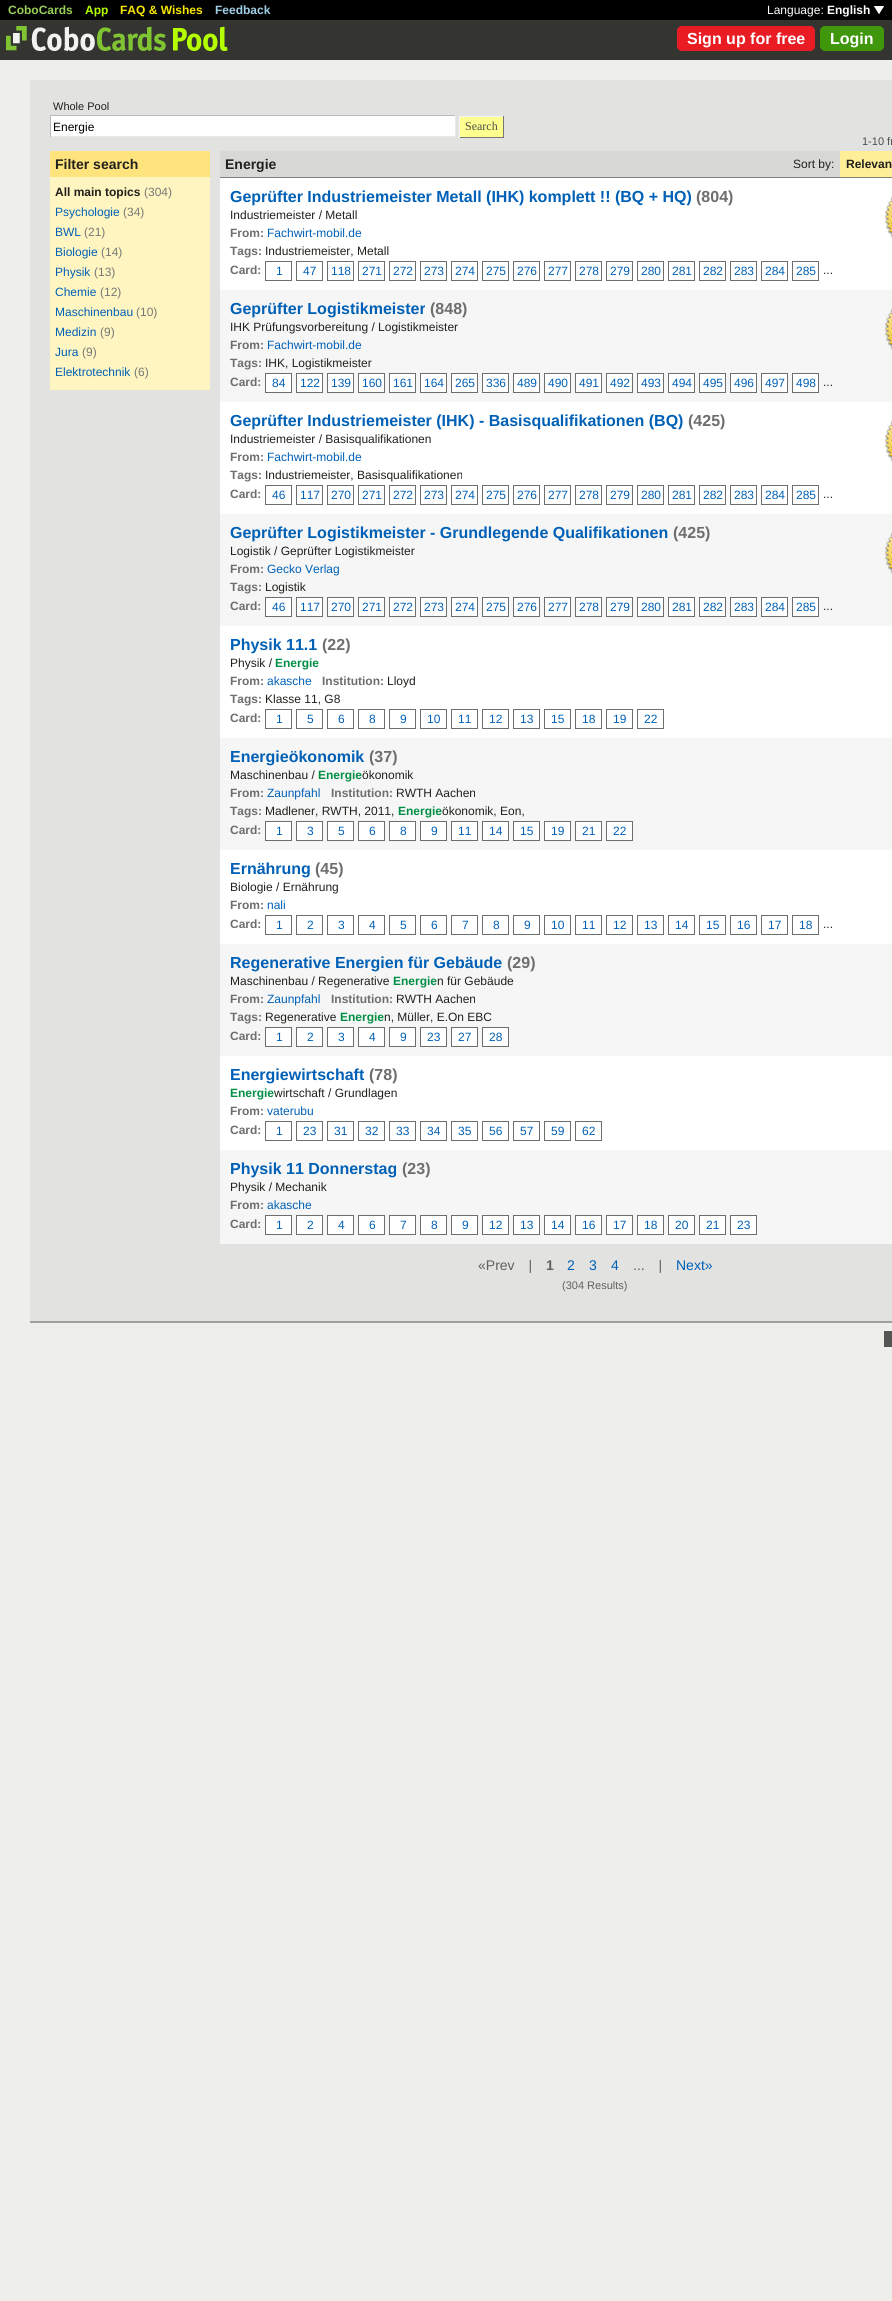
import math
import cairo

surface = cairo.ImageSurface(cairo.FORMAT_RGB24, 892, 2301)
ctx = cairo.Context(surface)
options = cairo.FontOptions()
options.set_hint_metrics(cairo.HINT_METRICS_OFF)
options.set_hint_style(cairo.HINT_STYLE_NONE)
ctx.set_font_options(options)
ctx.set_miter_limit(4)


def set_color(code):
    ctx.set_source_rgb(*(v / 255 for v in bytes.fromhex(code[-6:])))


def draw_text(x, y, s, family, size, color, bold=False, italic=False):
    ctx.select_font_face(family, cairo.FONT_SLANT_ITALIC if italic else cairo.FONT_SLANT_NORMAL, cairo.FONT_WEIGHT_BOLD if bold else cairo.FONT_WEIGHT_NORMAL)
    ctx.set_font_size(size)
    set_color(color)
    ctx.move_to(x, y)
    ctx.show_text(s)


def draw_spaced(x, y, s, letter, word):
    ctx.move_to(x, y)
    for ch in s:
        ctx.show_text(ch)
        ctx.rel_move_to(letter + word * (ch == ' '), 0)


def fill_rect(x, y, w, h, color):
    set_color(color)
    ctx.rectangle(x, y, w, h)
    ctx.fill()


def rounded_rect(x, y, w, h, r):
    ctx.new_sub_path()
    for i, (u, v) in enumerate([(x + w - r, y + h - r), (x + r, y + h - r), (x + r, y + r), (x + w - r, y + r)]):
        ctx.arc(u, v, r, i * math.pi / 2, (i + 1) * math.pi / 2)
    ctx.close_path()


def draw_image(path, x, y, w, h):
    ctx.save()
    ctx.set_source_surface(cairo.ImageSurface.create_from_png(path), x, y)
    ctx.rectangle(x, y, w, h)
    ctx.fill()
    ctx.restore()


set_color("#eeefeb")
ctx.paint()
fill_rect(0, 20, 892, 40, "#343530")
fill_rect(0, 0, 892, 20, "#000000")
draw_text(8, 14, "CoboCards", "Liberation Sans", 12, "#97cf58", bold=True)
draw_text(85, 14, "App", "Liberation Sans", 12, "#b4ff00", bold=True)
draw_text(120, 14, "FAQ & Wishes", "Liberation Sans", 12, "#f9e800", bold=True)
draw_text(215, 14, "Feedback", "Liberation Sans", 12, "#9fcfe7", bold=True)
draw_text(767, 14, "Language:", "Liberation Sans", 12, "#ffffff")
draw_text(827, 14, "English", "Liberation Sans", 12, "#ffffff", bold=True)
draw_image("assets/img1.png", 874, 6, 10, 8)
draw_image("assets/img2.png", 6, 26, 222, 25)
set_color("#e91c24")
rounded_rect(677, 26, 138, 25, 5)
ctx.fill()
draw_text(687, 44, "Sign up for free", "Liberation Sans", 16, "#ffffff", bold=True)
set_color("#40970b")
rounded_rect(820, 26, 64, 25, 5)
ctx.fill()
draw_text(830, 44, "Login", "Liberation Sans", 16, "#ffffff", bold=True)
fill_rect(30, 80, 862, 1241, "#e2e3e0")
fill_rect(30, 1321, 862, 2, "#9f9f9f")
draw_text(53, 110, "Whole Pool", "Liberation Sans", 11, "#21201c")
fill_rect(51, 116, 404, 20, "#ffffff")
fill_rect(50, 115, 406, 1, "#bbbbba")
fill_rect(455, 115, 1, 22, "#e8e9e7")
fill_rect(50, 136, 406, 1, "#e8e9e7")
fill_rect(50, 115, 1, 22, "#bbbbba")
draw_text(53, 131, "Energie", "Liberation Sans", 12, "#000000")
fill_rect(460, 117, 43, 20, "#ffff90")
fill_rect(459, 116, 45, 1, "#f6f6f6")
fill_rect(503, 116, 1, 22, "#777876")
fill_rect(459, 137, 45, 1, "#777876")
fill_rect(459, 116, 1, 22, "#f6f6f6")
draw_text(465, 130, "Search", "Liberation Serif", 12, "#4b4c49")
fill_rect(50, 151, 160, 26, "#ffe47e")
draw_text(55, 169, "Filter search", "Liberation Sans", 14, "#21201c", bold=True)
fill_rect(50, 177, 160, 213, "#fff5c1")
draw_text(55, 196, "All main topics", "Liberation Sans", 12, "#21201c", bold=True)
draw_text(144, 196, "(304)", "Liberation Sans", 12, "#777876")
draw_text(55, 216, "Psychologie", "Liberation Sans", 12, "#0060b6")
draw_text(123, 216, "(34)", "Liberation Sans", 12, "#777876")
draw_text(55, 236, "BWL", "Liberation Sans", 12, "#0060b6")
draw_text(84, 236, "(21)", "Liberation Sans", 12, "#777876")
draw_text(55, 256, "Biologie", "Liberation Sans", 12, "#0060b6")
draw_text(101, 256, "(14)", "Liberation Sans", 12, "#777876")
draw_text(55, 276, "Physik", "Liberation Sans", 12, "#0060b6")
draw_text(94, 276, "(13)", "Liberation Sans", 12, "#777876")
draw_text(55, 296, "Chemie", "Liberation Sans", 12, "#0060b6")
draw_text(100, 296, "(12)", "Liberation Sans", 12, "#777876")
draw_text(55, 316, "Maschinenbau", "Liberation Sans", 12, "#0060b6")
draw_text(136, 316, "(10)", "Liberation Sans", 12, "#777876")
draw_text(55, 336, "Medizin", "Liberation Sans", 12, "#0060b6")
draw_text(100, 336, "(9)", "Liberation Sans", 12, "#777876")
draw_text(55, 356, "Jura", "Liberation Sans", 12, "#0060b6")
draw_text(82, 356, "(9)", "Liberation Sans", 12, "#777876")
draw_text(55, 376, "Elektrotechnik", "Liberation Sans", 12, "#0060b6")
draw_text(134, 376, "(6)", "Liberation Sans", 12, "#777876")
draw_text(862, 145, "1-10 fr", "Liberation Sans", 11, "#4b4c49")
fill_rect(220, 151, 620, 26, "#d8d9d7")
fill_rect(220, 177, 672, 1, "#80807f")
draw_text(225, 169, "Energie", "Liberation Sans", 14, "#21201c", bold=True)
draw_text(793, 168, "Sort by:", "Liberation Sans", 12, "#21201c")
fill_rect(840, 151, 52, 26, "#ffee98")
draw_text(846, 168, "Relevan", "Liberation Sans", 12, "#21201c", bold=True)
fill_rect(220, 178, 672, 112, "#ffffff")
draw_text(230, 202, "Geprüfter Industriemeister Metall (IHK) komplett !! (BQ + HQ)", "Liberation Sans", 16, "#0060b6", bold=True)
draw_text(696, 202, "(804)", "Liberation Sans", 16, "#6d6f6c", bold=True)
draw_image("assets/img3.png", 885, 197, 7, 41)
draw_text(230, 219, "Industriemeister / Metall", "Liberation Sans", 12, "#21201c")
draw_text(230, 237, "From:", "Liberation Sans", 12, "#6d6f6c", bold=True)
draw_text(267, 237, "Fachwirt-mobil.de", "Liberation Sans", 12, "#0060b6")
draw_text(230, 255, "Tags:", "Liberation Sans", 12, "#6d6f6c", bold=True)
draw_text(265, 255, "Industriemeister, Metall", "Liberation Sans", 12, "#21201c")
draw_text(230, 274, "Card:", "Liberation Sans", 12, "#6d6f6c", bold=True)
ctx.rectangle(265.5, 261.5, 26, 19)
ctx.set_line_width(1)
ctx.stroke()
draw_text(276, 275, "1", "Liberation Sans", 12, "#0060b6")
ctx.rectangle(296.5, 261.5, 26, 19)
set_color("#6d6f6c")
ctx.stroke()
draw_text(303, 275, "47", "Liberation Sans", 12, "#0060b6")
ctx.rectangle(327.5, 261.5, 26, 19)
set_color("#6d6f6c")
ctx.stroke()
draw_text(331, 275, "118", "Liberation Sans", 12, "#0060b6")
ctx.rectangle(358.5, 261.5, 26, 19)
set_color("#6d6f6c")
ctx.stroke()
draw_text(362, 275, "271", "Liberation Sans", 12, "#0060b6")
ctx.rectangle(389.5, 261.5, 26, 19)
set_color("#6d6f6c")
ctx.stroke()
draw_text(393, 275, "272", "Liberation Sans", 12, "#0060b6")
ctx.rectangle(420.5, 261.5, 26, 19)
set_color("#6d6f6c")
ctx.stroke()
draw_text(424, 275, "273", "Liberation Sans", 12, "#0060b6")
ctx.rectangle(451.5, 261.5, 26, 19)
set_color("#6d6f6c")
ctx.stroke()
draw_text(455, 275, "274", "Liberation Sans", 12, "#0060b6")
ctx.rectangle(482.5, 261.5, 26, 19)
set_color("#6d6f6c")
ctx.stroke()
draw_text(486, 275, "275", "Liberation Sans", 12, "#0060b6")
ctx.rectangle(513.5, 261.5, 26, 19)
set_color("#6d6f6c")
ctx.stroke()
draw_text(517, 275, "276", "Liberation Sans", 12, "#0060b6")
ctx.rectangle(544.5, 261.5, 26, 19)
set_color("#6d6f6c")
ctx.stroke()
draw_text(548, 275, "277", "Liberation Sans", 12, "#0060b6")
ctx.rectangle(575.5, 261.5, 26, 19)
set_color("#6d6f6c")
ctx.stroke()
draw_text(579, 275, "278", "Liberation Sans", 12, "#0060b6")
ctx.rectangle(606.5, 261.5, 26, 19)
set_color("#6d6f6c")
ctx.stroke()
draw_text(610, 275, "279", "Liberation Sans", 12, "#0060b6")
ctx.rectangle(637.5, 261.5, 26, 19)
set_color("#6d6f6c")
ctx.stroke()
draw_text(641, 275, "280", "Liberation Sans", 12, "#0060b6")
ctx.rectangle(668.5, 261.5, 26, 19)
set_color("#6d6f6c")
ctx.stroke()
draw_text(672, 275, "281", "Liberation Sans", 12, "#0060b6")
ctx.rectangle(699.5, 261.5, 26, 19)
set_color("#6d6f6c")
ctx.stroke()
draw_text(703, 275, "282", "Liberation Sans", 12, "#0060b6")
ctx.rectangle(730.5, 261.5, 26, 19)
set_color("#6d6f6c")
ctx.stroke()
draw_text(734, 275, "283", "Liberation Sans", 12, "#0060b6")
ctx.rectangle(761.5, 261.5, 26, 19)
set_color("#6d6f6c")
ctx.stroke()
draw_text(765, 275, "284", "Liberation Sans", 12, "#0060b6")
ctx.rectangle(792.5, 261.5, 26, 19)
set_color("#6d6f6c")
ctx.stroke()
draw_text(796, 275, "285", "Liberation Sans", 12, "#0060b6")
draw_text(823, 274, "...", "Liberation Sans", 12, "#21201c")
fill_rect(220, 290, 672, 112, "#f6f6f6")
draw_text(230, 314, "Geprüfter Logistikmeister", "Liberation Sans", 16, "#0060b6", bold=True)
draw_text(430, 314, "(848)", "Liberation Sans", 16, "#6d6f6c", bold=True)
draw_image("assets/img4.png", 885, 309, 7, 41)
draw_text(230, 331, "IHK Prüfungsvorbereitung / Logistikmeister", "Liberation Sans", 12, "#21201c")
draw_text(230, 349, "From:", "Liberation Sans", 12, "#6d6f6c", bold=True)
draw_text(267, 349, "Fachwirt-mobil.de", "Liberation Sans", 12, "#0060b6")
draw_text(230, 367, "Tags:", "Liberation Sans", 12, "#6d6f6c", bold=True)
draw_text(265, 367, "IHK, Logistikmeister", "Liberation Sans", 12, "#21201c")
draw_text(230, 386, "Card:", "Liberation Sans", 12, "#6d6f6c", bold=True)
set_color("#ffffff")
ctx.rectangle(265.5, 373.5, 26, 19)
ctx.fill_preserve()
set_color("#6d6f6c")
ctx.stroke()
draw_text(272, 387, "84", "Liberation Sans", 12, "#0060b6")
set_color("#ffffff")
ctx.rectangle(296.5, 373.5, 26, 19)
ctx.fill_preserve()
set_color("#6d6f6c")
ctx.stroke()
draw_text(300, 387, "122", "Liberation Sans", 12, "#0060b6")
set_color("#ffffff")
ctx.rectangle(327.5, 373.5, 26, 19)
ctx.fill_preserve()
set_color("#6d6f6c")
ctx.stroke()
draw_text(331, 387, "139", "Liberation Sans", 12, "#0060b6")
set_color("#ffffff")
ctx.rectangle(358.5, 373.5, 26, 19)
ctx.fill_preserve()
set_color("#6d6f6c")
ctx.stroke()
draw_text(362, 387, "160", "Liberation Sans", 12, "#0060b6")
set_color("#ffffff")
ctx.rectangle(389.5, 373.5, 26, 19)
ctx.fill_preserve()
set_color("#6d6f6c")
ctx.stroke()
draw_text(393, 387, "161", "Liberation Sans", 12, "#0060b6")
set_color("#ffffff")
ctx.rectangle(420.5, 373.5, 26, 19)
ctx.fill_preserve()
set_color("#6d6f6c")
ctx.stroke()
draw_text(424, 387, "164", "Liberation Sans", 12, "#0060b6")
set_color("#ffffff")
ctx.rectangle(451.5, 373.5, 26, 19)
ctx.fill_preserve()
set_color("#6d6f6c")
ctx.stroke()
draw_text(455, 387, "265", "Liberation Sans", 12, "#0060b6")
set_color("#ffffff")
ctx.rectangle(482.5, 373.5, 26, 19)
ctx.fill_preserve()
set_color("#6d6f6c")
ctx.stroke()
draw_text(486, 387, "336", "Liberation Sans", 12, "#0060b6")
set_color("#ffffff")
ctx.rectangle(513.5, 373.5, 26, 19)
ctx.fill_preserve()
set_color("#6d6f6c")
ctx.stroke()
draw_text(517, 387, "489", "Liberation Sans", 12, "#0060b6")
set_color("#ffffff")
ctx.rectangle(544.5, 373.5, 26, 19)
ctx.fill_preserve()
set_color("#6d6f6c")
ctx.stroke()
draw_text(548, 387, "490", "Liberation Sans", 12, "#0060b6")
set_color("#ffffff")
ctx.rectangle(575.5, 373.5, 26, 19)
ctx.fill_preserve()
set_color("#6d6f6c")
ctx.stroke()
draw_text(579, 387, "491", "Liberation Sans", 12, "#0060b6")
set_color("#ffffff")
ctx.rectangle(606.5, 373.5, 26, 19)
ctx.fill_preserve()
set_color("#6d6f6c")
ctx.stroke()
draw_text(610, 387, "492", "Liberation Sans", 12, "#0060b6")
set_color("#ffffff")
ctx.rectangle(637.5, 373.5, 26, 19)
ctx.fill_preserve()
set_color("#6d6f6c")
ctx.stroke()
draw_text(641, 387, "493", "Liberation Sans", 12, "#0060b6")
set_color("#ffffff")
ctx.rectangle(668.5, 373.5, 26, 19)
ctx.fill_preserve()
set_color("#6d6f6c")
ctx.stroke()
draw_text(672, 387, "494", "Liberation Sans", 12, "#0060b6")
set_color("#ffffff")
ctx.rectangle(699.5, 373.5, 26, 19)
ctx.fill_preserve()
set_color("#6d6f6c")
ctx.stroke()
draw_text(703, 387, "495", "Liberation Sans", 12, "#0060b6")
set_color("#ffffff")
ctx.rectangle(730.5, 373.5, 26, 19)
ctx.fill_preserve()
set_color("#6d6f6c")
ctx.stroke()
draw_text(734, 387, "496", "Liberation Sans", 12, "#0060b6")
set_color("#ffffff")
ctx.rectangle(761.5, 373.5, 26, 19)
ctx.fill_preserve()
set_color("#6d6f6c")
ctx.stroke()
draw_text(765, 387, "497", "Liberation Sans", 12, "#0060b6")
set_color("#ffffff")
ctx.rectangle(792.5, 373.5, 26, 19)
ctx.fill_preserve()
set_color("#6d6f6c")
ctx.stroke()
draw_text(796, 387, "498", "Liberation Sans", 12, "#0060b6")
draw_text(823, 386, "...", "Liberation Sans", 12, "#21201c")
fill_rect(220, 402, 672, 112, "#ffffff")
draw_text(230, 426, "Geprüfter Industriemeister (IHK) - Basisqualifikationen (BQ)", "Liberation Sans", 16, "#0060b6", bold=True)
draw_text(688, 426, "(425)", "Liberation Sans", 16, "#6d6f6c", bold=True)
draw_image("assets/img3.png", 885, 421, 7, 41)
draw_text(230, 443, "Industriemeister / Basisqualifikationen", "Liberation Sans", 12, "#21201c")
draw_text(230, 461, "From:", "Liberation Sans", 12, "#6d6f6c", bold=True)
draw_text(267, 461, "Fachwirt-mobil.de", "Liberation Sans", 12, "#0060b6")
draw_text(230, 479, "Tags:", "Liberation Sans", 12, "#6d6f6c", bold=True)
draw_text(265, 479, "Industriemeister, Basisqualifikationen", "Liberation Sans", 12, "#21201c")
draw_text(230, 498, "Card:", "Liberation Sans", 12, "#6d6f6c", bold=True)
ctx.rectangle(265.5, 485.5, 26, 19)
ctx.stroke()
draw_text(272, 499, "46", "Liberation Sans", 12, "#0060b6")
ctx.rectangle(296.5, 485.5, 26, 19)
set_color("#6d6f6c")
ctx.stroke()
draw_text(300, 499, "117", "Liberation Sans", 12, "#0060b6")
ctx.rectangle(327.5, 485.5, 26, 19)
set_color("#6d6f6c")
ctx.stroke()
draw_text(331, 499, "270", "Liberation Sans", 12, "#0060b6")
ctx.rectangle(358.5, 485.5, 26, 19)
set_color("#6d6f6c")
ctx.stroke()
draw_text(362, 499, "271", "Liberation Sans", 12, "#0060b6")
ctx.rectangle(389.5, 485.5, 26, 19)
set_color("#6d6f6c")
ctx.stroke()
draw_text(393, 499, "272", "Liberation Sans", 12, "#0060b6")
ctx.rectangle(420.5, 485.5, 26, 19)
set_color("#6d6f6c")
ctx.stroke()
draw_text(424, 499, "273", "Liberation Sans", 12, "#0060b6")
ctx.rectangle(451.5, 485.5, 26, 19)
set_color("#6d6f6c")
ctx.stroke()
draw_text(455, 499, "274", "Liberation Sans", 12, "#0060b6")
ctx.rectangle(482.5, 485.5, 26, 19)
set_color("#6d6f6c")
ctx.stroke()
draw_text(486, 499, "275", "Liberation Sans", 12, "#0060b6")
ctx.rectangle(513.5, 485.5, 26, 19)
set_color("#6d6f6c")
ctx.stroke()
draw_text(517, 499, "276", "Liberation Sans", 12, "#0060b6")
ctx.rectangle(544.5, 485.5, 26, 19)
set_color("#6d6f6c")
ctx.stroke()
draw_text(548, 499, "277", "Liberation Sans", 12, "#0060b6")
ctx.rectangle(575.5, 485.5, 26, 19)
set_color("#6d6f6c")
ctx.stroke()
draw_text(579, 499, "278", "Liberation Sans", 12, "#0060b6")
ctx.rectangle(606.5, 485.5, 26, 19)
set_color("#6d6f6c")
ctx.stroke()
draw_text(610, 499, "279", "Liberation Sans", 12, "#0060b6")
ctx.rectangle(637.5, 485.5, 26, 19)
set_color("#6d6f6c")
ctx.stroke()
draw_text(641, 499, "280", "Liberation Sans", 12, "#0060b6")
ctx.rectangle(668.5, 485.5, 26, 19)
set_color("#6d6f6c")
ctx.stroke()
draw_text(672, 499, "281", "Liberation Sans", 12, "#0060b6")
ctx.rectangle(699.5, 485.5, 26, 19)
set_color("#6d6f6c")
ctx.stroke()
draw_text(703, 499, "282", "Liberation Sans", 12, "#0060b6")
ctx.rectangle(730.5, 485.5, 26, 19)
set_color("#6d6f6c")
ctx.stroke()
draw_text(734, 499, "283", "Liberation Sans", 12, "#0060b6")
ctx.rectangle(761.5, 485.5, 26, 19)
set_color("#6d6f6c")
ctx.stroke()
draw_text(765, 499, "284", "Liberation Sans", 12, "#0060b6")
ctx.rectangle(792.5, 485.5, 26, 19)
set_color("#6d6f6c")
ctx.stroke()
draw_text(796, 499, "285", "Liberation Sans", 12, "#0060b6")
draw_text(823, 498, "...", "Liberation Sans", 12, "#21201c")
fill_rect(220, 514, 672, 112, "#f6f6f6")
draw_text(230, 538, "Geprüfter Logistikmeister - Grundlegende Qualifikationen", "Liberation Sans", 16, "#0060b6", bold=True)
draw_text(673, 538, "(425)", "Liberation Sans", 16, "#6d6f6c", bold=True)
draw_image("assets/img4.png", 885, 533, 7, 41)
draw_text(230, 555, "Logistik / Geprüfter Logistikmeister", "Liberation Sans", 12, "#21201c")
draw_text(230, 573, "From:", "Liberation Sans", 12, "#6d6f6c", bold=True)
draw_text(267, 573, "Gecko Verlag", "Liberation Sans", 12, "#0060b6")
draw_text(230, 591, "Tags:", "Liberation Sans", 12, "#6d6f6c", bold=True)
draw_text(265, 591, "Logistik", "Liberation Sans", 12, "#21201c")
draw_text(230, 610, "Card:", "Liberation Sans", 12, "#6d6f6c", bold=True)
set_color("#ffffff")
ctx.rectangle(265.5, 597.5, 26, 19)
ctx.fill_preserve()
set_color("#6d6f6c")
ctx.stroke()
draw_text(272, 611, "46", "Liberation Sans", 12, "#0060b6")
set_color("#ffffff")
ctx.rectangle(296.5, 597.5, 26, 19)
ctx.fill_preserve()
set_color("#6d6f6c")
ctx.stroke()
draw_text(300, 611, "117", "Liberation Sans", 12, "#0060b6")
set_color("#ffffff")
ctx.rectangle(327.5, 597.5, 26, 19)
ctx.fill_preserve()
set_color("#6d6f6c")
ctx.stroke()
draw_text(331, 611, "270", "Liberation Sans", 12, "#0060b6")
set_color("#ffffff")
ctx.rectangle(358.5, 597.5, 26, 19)
ctx.fill_preserve()
set_color("#6d6f6c")
ctx.stroke()
draw_text(362, 611, "271", "Liberation Sans", 12, "#0060b6")
set_color("#ffffff")
ctx.rectangle(389.5, 597.5, 26, 19)
ctx.fill_preserve()
set_color("#6d6f6c")
ctx.stroke()
draw_text(393, 611, "272", "Liberation Sans", 12, "#0060b6")
set_color("#ffffff")
ctx.rectangle(420.5, 597.5, 26, 19)
ctx.fill_preserve()
set_color("#6d6f6c")
ctx.stroke()
draw_text(424, 611, "273", "Liberation Sans", 12, "#0060b6")
set_color("#ffffff")
ctx.rectangle(451.5, 597.5, 26, 19)
ctx.fill_preserve()
set_color("#6d6f6c")
ctx.stroke()
draw_text(455, 611, "274", "Liberation Sans", 12, "#0060b6")
set_color("#ffffff")
ctx.rectangle(482.5, 597.5, 26, 19)
ctx.fill_preserve()
set_color("#6d6f6c")
ctx.stroke()
draw_text(486, 611, "275", "Liberation Sans", 12, "#0060b6")
set_color("#ffffff")
ctx.rectangle(513.5, 597.5, 26, 19)
ctx.fill_preserve()
set_color("#6d6f6c")
ctx.stroke()
draw_text(517, 611, "276", "Liberation Sans", 12, "#0060b6")
set_color("#ffffff")
ctx.rectangle(544.5, 597.5, 26, 19)
ctx.fill_preserve()
set_color("#6d6f6c")
ctx.stroke()
draw_text(548, 611, "277", "Liberation Sans", 12, "#0060b6")
set_color("#ffffff")
ctx.rectangle(575.5, 597.5, 26, 19)
ctx.fill_preserve()
set_color("#6d6f6c")
ctx.stroke()
draw_text(579, 611, "278", "Liberation Sans", 12, "#0060b6")
set_color("#ffffff")
ctx.rectangle(606.5, 597.5, 26, 19)
ctx.fill_preserve()
set_color("#6d6f6c")
ctx.stroke()
draw_text(610, 611, "279", "Liberation Sans", 12, "#0060b6")
set_color("#ffffff")
ctx.rectangle(637.5, 597.5, 26, 19)
ctx.fill_preserve()
set_color("#6d6f6c")
ctx.stroke()
draw_text(641, 611, "280", "Liberation Sans", 12, "#0060b6")
set_color("#ffffff")
ctx.rectangle(668.5, 597.5, 26, 19)
ctx.fill_preserve()
set_color("#6d6f6c")
ctx.stroke()
draw_text(672, 611, "281", "Liberation Sans", 12, "#0060b6")
set_color("#ffffff")
ctx.rectangle(699.5, 597.5, 26, 19)
ctx.fill_preserve()
set_color("#6d6f6c")
ctx.stroke()
draw_text(703, 611, "282", "Liberation Sans", 12, "#0060b6")
set_color("#ffffff")
ctx.rectangle(730.5, 597.5, 26, 19)
ctx.fill_preserve()
set_color("#6d6f6c")
ctx.stroke()
draw_text(734, 611, "283", "Liberation Sans", 12, "#0060b6")
set_color("#ffffff")
ctx.rectangle(761.5, 597.5, 26, 19)
ctx.fill_preserve()
set_color("#6d6f6c")
ctx.stroke()
draw_text(765, 611, "284", "Liberation Sans", 12, "#0060b6")
set_color("#ffffff")
ctx.rectangle(792.5, 597.5, 26, 19)
ctx.fill_preserve()
set_color("#6d6f6c")
ctx.stroke()
draw_text(796, 611, "285", "Liberation Sans", 12, "#0060b6")
draw_text(823, 610, "...", "Liberation Sans", 12, "#21201c")
fill_rect(220, 626, 672, 112, "#ffffff")
draw_text(230, 650, "Physik 11.1", "Liberation Sans", 16, "#0060b6", bold=True)
draw_text(322, 650, "(22)", "Liberation Sans", 16, "#6d6f6c", bold=True)
draw_text(230, 667, "Physik /", "Liberation Sans", 12, "#21201c")
draw_text(275, 667, "Energie", "Liberation Sans", 12, "#008e45", bold=True)
draw_text(230, 685, "From:", "Liberation Sans", 12, "#6d6f6c", bold=True)
draw_text(267, 685, "akasche", "Liberation Sans", 12, "#0060b6")
draw_text(322, 685, "Institution:", "Liberation Sans", 12, "#6d6f6c", bold=True)
draw_text(387, 685, "Lloyd", "Liberation Sans", 12, "#21201c")
draw_text(230, 703, "Tags:", "Liberation Sans", 12, "#6d6f6c", bold=True)
draw_text(265, 703, "Klasse 11, G8", "Liberation Sans", 12, "#21201c")
draw_text(230, 722, "Card:", "Liberation Sans", 12, "#6d6f6c", bold=True)
ctx.rectangle(265.5, 709.5, 26, 19)
ctx.stroke()
draw_text(276, 723, "1", "Liberation Sans", 12, "#0060b6")
ctx.rectangle(296.5, 709.5, 26, 19)
set_color("#6d6f6c")
ctx.stroke()
draw_text(307, 723, "5", "Liberation Sans", 12, "#0060b6")
ctx.rectangle(327.5, 709.5, 26, 19)
set_color("#6d6f6c")
ctx.stroke()
draw_text(338, 723, "6", "Liberation Sans", 12, "#0060b6")
ctx.rectangle(358.5, 709.5, 26, 19)
set_color("#6d6f6c")
ctx.stroke()
draw_text(369, 723, "8", "Liberation Sans", 12, "#0060b6")
ctx.rectangle(389.5, 709.5, 26, 19)
set_color("#6d6f6c")
ctx.stroke()
draw_text(400, 723, "9", "Liberation Sans", 12, "#0060b6")
ctx.rectangle(420.5, 709.5, 26, 19)
set_color("#6d6f6c")
ctx.stroke()
draw_text(427, 723, "10", "Liberation Sans", 12, "#0060b6")
ctx.rectangle(451.5, 709.5, 26, 19)
set_color("#6d6f6c")
ctx.stroke()
draw_text(458, 723, "11", "Liberation Sans", 12, "#0060b6")
ctx.rectangle(482.5, 709.5, 26, 19)
set_color("#6d6f6c")
ctx.stroke()
draw_text(489, 723, "12", "Liberation Sans", 12, "#0060b6")
ctx.rectangle(513.5, 709.5, 26, 19)
set_color("#6d6f6c")
ctx.stroke()
draw_text(520, 723, "13", "Liberation Sans", 12, "#0060b6")
ctx.rectangle(544.5, 709.5, 26, 19)
set_color("#6d6f6c")
ctx.stroke()
draw_text(551, 723, "15", "Liberation Sans", 12, "#0060b6")
ctx.rectangle(575.5, 709.5, 26, 19)
set_color("#6d6f6c")
ctx.stroke()
draw_text(582, 723, "18", "Liberation Sans", 12, "#0060b6")
ctx.rectangle(606.5, 709.5, 26, 19)
set_color("#6d6f6c")
ctx.stroke()
draw_text(613, 723, "19", "Liberation Sans", 12, "#0060b6")
ctx.rectangle(637.5, 709.5, 26, 19)
set_color("#6d6f6c")
ctx.stroke()
draw_text(644, 723, "22", "Liberation Sans", 12, "#0060b6")
fill_rect(220, 738, 672, 112, "#f6f6f6")
draw_text(230, 762, "Energieökonomik", "Liberation Sans", 16, "#0060b6", bold=True)
draw_text(369, 762, "(37)", "Liberation Sans", 16, "#6d6f6c", bold=True)
draw_text(230, 779, "Maschinenbau /", "Liberation Sans", 12, "#21201c")
draw_text(318, 779, "Energie", "Liberation Sans", 12, "#008e45", bold=True)
draw_text(362, 779, "ökonomik", "Liberation Sans", 12, "#21201c")
draw_text(230, 797, "From:", "Liberation Sans", 12, "#6d6f6c", bold=True)
draw_text(267, 797, "Zaunpfahl", "Liberation Sans", 12, "#0060b6")
draw_text(331, 797, "Institution:", "Liberation Sans", 12, "#6d6f6c", bold=True)
draw_text(396, 797, "RWTH Aachen", "Liberation Sans", 12, "#21201c")
draw_text(230, 815, "Tags:", "Liberation Sans", 12, "#6d6f6c", bold=True)
draw_text(265, 815, "Madlener, RWTH, 2011,", "Liberation Sans", 12, "#21201c")
draw_text(398, 815, "Energie", "Liberation Sans", 12, "#008e45", bold=True)
draw_text(442, 815, "ökonomik, Eon,", "Liberation Sans", 12, "#21201c")
draw_text(230, 834, "Card:", "Liberation Sans", 12, "#6d6f6c", bold=True)
set_color("#ffffff")
ctx.rectangle(265.5, 821.5, 26, 19)
ctx.fill_preserve()
set_color("#6d6f6c")
ctx.stroke()
draw_text(276, 835, "1", "Liberation Sans", 12, "#0060b6")
set_color("#ffffff")
ctx.rectangle(296.5, 821.5, 26, 19)
ctx.fill_preserve()
set_color("#6d6f6c")
ctx.stroke()
draw_text(307, 835, "3", "Liberation Sans", 12, "#0060b6")
set_color("#ffffff")
ctx.rectangle(327.5, 821.5, 26, 19)
ctx.fill_preserve()
set_color("#6d6f6c")
ctx.stroke()
draw_text(338, 835, "5", "Liberation Sans", 12, "#0060b6")
set_color("#ffffff")
ctx.rectangle(358.5, 821.5, 26, 19)
ctx.fill_preserve()
set_color("#6d6f6c")
ctx.stroke()
draw_text(369, 835, "6", "Liberation Sans", 12, "#0060b6")
set_color("#ffffff")
ctx.rectangle(389.5, 821.5, 26, 19)
ctx.fill_preserve()
set_color("#6d6f6c")
ctx.stroke()
draw_text(400, 835, "8", "Liberation Sans", 12, "#0060b6")
set_color("#ffffff")
ctx.rectangle(420.5, 821.5, 26, 19)
ctx.fill_preserve()
set_color("#6d6f6c")
ctx.stroke()
draw_text(431, 835, "9", "Liberation Sans", 12, "#0060b6")
set_color("#ffffff")
ctx.rectangle(451.5, 821.5, 26, 19)
ctx.fill_preserve()
set_color("#6d6f6c")
ctx.stroke()
draw_text(458, 835, "11", "Liberation Sans", 12, "#0060b6")
set_color("#ffffff")
ctx.rectangle(482.5, 821.5, 26, 19)
ctx.fill_preserve()
set_color("#6d6f6c")
ctx.stroke()
draw_text(489, 835, "14", "Liberation Sans", 12, "#0060b6")
set_color("#ffffff")
ctx.rectangle(513.5, 821.5, 26, 19)
ctx.fill_preserve()
set_color("#6d6f6c")
ctx.stroke()
draw_text(520, 835, "15", "Liberation Sans", 12, "#0060b6")
set_color("#ffffff")
ctx.rectangle(544.5, 821.5, 26, 19)
ctx.fill_preserve()
set_color("#6d6f6c")
ctx.stroke()
draw_text(551, 835, "19", "Liberation Sans", 12, "#0060b6")
set_color("#ffffff")
ctx.rectangle(575.5, 821.5, 26, 19)
ctx.fill_preserve()
set_color("#6d6f6c")
ctx.stroke()
draw_text(582, 835, "21", "Liberation Sans", 12, "#0060b6")
set_color("#ffffff")
ctx.rectangle(606.5, 821.5, 26, 19)
ctx.fill_preserve()
set_color("#6d6f6c")
ctx.stroke()
draw_text(613, 835, "22", "Liberation Sans", 12, "#0060b6")
fill_rect(220, 850, 672, 94, "#ffffff")
draw_text(230, 874, "Ernährung", "Liberation Sans", 16, "#0060b6", bold=True)
draw_text(315, 874, "(45)", "Liberation Sans", 16, "#6d6f6c", bold=True)
draw_text(230, 891, "Biologie / Ernährung", "Liberation Sans", 12, "#21201c")
draw_text(230, 909, "From:", "Liberation Sans", 12, "#6d6f6c", bold=True)
draw_text(267, 909, "nali", "Liberation Sans", 12, "#0060b6")
draw_text(230, 928, "Card:", "Liberation Sans", 12, "#6d6f6c", bold=True)
ctx.rectangle(265.5, 915.5, 26, 19)
ctx.stroke()
draw_text(276, 929, "1", "Liberation Sans", 12, "#0060b6")
ctx.rectangle(296.5, 915.5, 26, 19)
set_color("#6d6f6c")
ctx.stroke()
draw_text(307, 929, "2", "Liberation Sans", 12, "#0060b6")
ctx.rectangle(327.5, 915.5, 26, 19)
set_color("#6d6f6c")
ctx.stroke()
draw_text(338, 929, "3", "Liberation Sans", 12, "#0060b6")
ctx.rectangle(358.5, 915.5, 26, 19)
set_color("#6d6f6c")
ctx.stroke()
draw_text(369, 929, "4", "Liberation Sans", 12, "#0060b6")
ctx.rectangle(389.5, 915.5, 26, 19)
set_color("#6d6f6c")
ctx.stroke()
draw_text(400, 929, "5", "Liberation Sans", 12, "#0060b6")
ctx.rectangle(420.5, 915.5, 26, 19)
set_color("#6d6f6c")
ctx.stroke()
draw_text(431, 929, "6", "Liberation Sans", 12, "#0060b6")
ctx.rectangle(451.5, 915.5, 26, 19)
set_color("#6d6f6c")
ctx.stroke()
draw_text(462, 929, "7", "Liberation Sans", 12, "#0060b6")
ctx.rectangle(482.5, 915.5, 26, 19)
set_color("#6d6f6c")
ctx.stroke()
draw_text(493, 929, "8", "Liberation Sans", 12, "#0060b6")
ctx.rectangle(513.5, 915.5, 26, 19)
set_color("#6d6f6c")
ctx.stroke()
draw_text(524, 929, "9", "Liberation Sans", 12, "#0060b6")
ctx.rectangle(544.5, 915.5, 26, 19)
set_color("#6d6f6c")
ctx.stroke()
draw_text(551, 929, "10", "Liberation Sans", 12, "#0060b6")
ctx.rectangle(575.5, 915.5, 26, 19)
set_color("#6d6f6c")
ctx.stroke()
draw_text(582, 929, "11", "Liberation Sans", 12, "#0060b6")
ctx.rectangle(606.5, 915.5, 26, 19)
set_color("#6d6f6c")
ctx.stroke()
draw_text(613, 929, "12", "Liberation Sans", 12, "#0060b6")
ctx.rectangle(637.5, 915.5, 26, 19)
set_color("#6d6f6c")
ctx.stroke()
draw_text(644, 929, "13", "Liberation Sans", 12, "#0060b6")
ctx.rectangle(668.5, 915.5, 26, 19)
set_color("#6d6f6c")
ctx.stroke()
draw_text(675, 929, "14", "Liberation Sans", 12, "#0060b6")
ctx.rectangle(699.5, 915.5, 26, 19)
set_color("#6d6f6c")
ctx.stroke()
draw_text(706, 929, "15", "Liberation Sans", 12, "#0060b6")
ctx.rectangle(730.5, 915.5, 26, 19)
set_color("#6d6f6c")
ctx.stroke()
draw_text(737, 929, "16", "Liberation Sans", 12, "#0060b6")
ctx.rectangle(761.5, 915.5, 26, 19)
set_color("#6d6f6c")
ctx.stroke()
draw_text(768, 929, "17", "Liberation Sans", 12, "#0060b6")
ctx.rectangle(792.5, 915.5, 26, 19)
set_color("#6d6f6c")
ctx.stroke()
draw_text(799, 929, "18", "Liberation Sans", 12, "#0060b6")
draw_text(823, 928, "...", "Liberation Sans", 12, "#21201c")
fill_rect(220, 944, 672, 112, "#f6f6f6")
draw_text(230, 968, "Regenerative Energien für Gebäude", "Liberation Sans", 16, "#0060b6", bold=True)
draw_text(507, 968, "(29)", "Liberation Sans", 16, "#6d6f6c", bold=True)
draw_text(230, 985, "Maschinenbau / Regenerative", "Liberation Sans", 12, "#21201c")
draw_text(393, 985, "Energie", "Liberation Sans", 12, "#008e45", bold=True)
draw_text(437, 985, "n für Gebäude", "Liberation Sans", 12, "#21201c")
draw_text(230, 1003, "From:", "Liberation Sans", 12, "#6d6f6c", bold=True)
draw_text(267, 1003, "Zaunpfahl", "Liberation Sans", 12, "#0060b6")
draw_text(331, 1003, "Institution:", "Liberation Sans", 12, "#6d6f6c", bold=True)
draw_text(396, 1003, "RWTH Aachen", "Liberation Sans", 12, "#21201c")
draw_text(230, 1021, "Tags:", "Liberation Sans", 12, "#6d6f6c", bold=True)
draw_text(265, 1021, "Regenerative", "Liberation Sans", 12, "#21201c")
draw_text(340, 1021, "Energie", "Liberation Sans", 12, "#008e45", bold=True)
draw_text(384, 1021, "n, Müller, E.On EBC", "Liberation Sans", 12, "#21201c")
draw_text(230, 1040, "Card:", "Liberation Sans", 12, "#6d6f6c", bold=True)
set_color("#ffffff")
ctx.rectangle(265.5, 1027.5, 26, 19)
ctx.fill_preserve()
set_color("#6d6f6c")
ctx.stroke()
draw_text(276, 1041, "1", "Liberation Sans", 12, "#0060b6")
set_color("#ffffff")
ctx.rectangle(296.5, 1027.5, 26, 19)
ctx.fill_preserve()
set_color("#6d6f6c")
ctx.stroke()
draw_text(307, 1041, "2", "Liberation Sans", 12, "#0060b6")
set_color("#ffffff")
ctx.rectangle(327.5, 1027.5, 26, 19)
ctx.fill_preserve()
set_color("#6d6f6c")
ctx.stroke()
draw_text(338, 1041, "3", "Liberation Sans", 12, "#0060b6")
set_color("#ffffff")
ctx.rectangle(358.5, 1027.5, 26, 19)
ctx.fill_preserve()
set_color("#6d6f6c")
ctx.stroke()
draw_text(369, 1041, "4", "Liberation Sans", 12, "#0060b6")
set_color("#ffffff")
ctx.rectangle(389.5, 1027.5, 26, 19)
ctx.fill_preserve()
set_color("#6d6f6c")
ctx.stroke()
draw_text(400, 1041, "9", "Liberation Sans", 12, "#0060b6")
set_color("#ffffff")
ctx.rectangle(420.5, 1027.5, 26, 19)
ctx.fill_preserve()
set_color("#6d6f6c")
ctx.stroke()
draw_text(427, 1041, "23", "Liberation Sans", 12, "#0060b6")
set_color("#ffffff")
ctx.rectangle(451.5, 1027.5, 26, 19)
ctx.fill_preserve()
set_color("#6d6f6c")
ctx.stroke()
draw_text(458, 1041, "27", "Liberation Sans", 12, "#0060b6")
set_color("#ffffff")
ctx.rectangle(482.5, 1027.5, 26, 19)
ctx.fill_preserve()
set_color("#6d6f6c")
ctx.stroke()
draw_text(489, 1041, "28", "Liberation Sans", 12, "#0060b6")
fill_rect(220, 1056, 672, 94, "#ffffff")
draw_text(230, 1080, "Energiewirtschaft", "Liberation Sans", 16, "#0060b6", bold=True)
draw_text(369, 1080, "(78)", "Liberation Sans", 16, "#6d6f6c", bold=True)
draw_text(230, 1097, "Energie", "Liberation Sans", 12, "#008e45", bold=True)
draw_text(274, 1097, "wirtschaft / Grundlagen", "Liberation Sans", 12, "#21201c")
draw_text(230, 1115, "From:", "Liberation Sans", 12, "#6d6f6c", bold=True)
draw_text(267, 1115, "vaterubu", "Liberation Sans", 12, "#0060b6")
draw_text(230, 1134, "Card:", "Liberation Sans", 12, "#6d6f6c", bold=True)
ctx.rectangle(265.5, 1121.5, 26, 19)
ctx.stroke()
draw_text(276, 1135, "1", "Liberation Sans", 12, "#0060b6")
ctx.rectangle(296.5, 1121.5, 26, 19)
set_color("#6d6f6c")
ctx.stroke()
draw_text(303, 1135, "23", "Liberation Sans", 12, "#0060b6")
ctx.rectangle(327.5, 1121.5, 26, 19)
set_color("#6d6f6c")
ctx.stroke()
draw_text(334, 1135, "31", "Liberation Sans", 12, "#0060b6")
ctx.rectangle(358.5, 1121.5, 26, 19)
set_color("#6d6f6c")
ctx.stroke()
draw_text(365, 1135, "32", "Liberation Sans", 12, "#0060b6")
ctx.rectangle(389.5, 1121.5, 26, 19)
set_color("#6d6f6c")
ctx.stroke()
draw_text(396, 1135, "33", "Liberation Sans", 12, "#0060b6")
ctx.rectangle(420.5, 1121.5, 26, 19)
set_color("#6d6f6c")
ctx.stroke()
draw_text(427, 1135, "34", "Liberation Sans", 12, "#0060b6")
ctx.rectangle(451.5, 1121.5, 26, 19)
set_color("#6d6f6c")
ctx.stroke()
draw_text(458, 1135, "35", "Liberation Sans", 12, "#0060b6")
ctx.rectangle(482.5, 1121.5, 26, 19)
set_color("#6d6f6c")
ctx.stroke()
draw_text(489, 1135, "56", "Liberation Sans", 12, "#0060b6")
ctx.rectangle(513.5, 1121.5, 26, 19)
set_color("#6d6f6c")
ctx.stroke()
draw_text(520, 1135, "57", "Liberation Sans", 12, "#0060b6")
ctx.rectangle(544.5, 1121.5, 26, 19)
set_color("#6d6f6c")
ctx.stroke()
draw_text(551, 1135, "59", "Liberation Sans", 12, "#0060b6")
ctx.rectangle(575.5, 1121.5, 26, 19)
set_color("#6d6f6c")
ctx.stroke()
draw_text(582, 1135, "62", "Liberation Sans", 12, "#0060b6")
fill_rect(220, 1150, 672, 94, "#f6f6f6")
draw_text(230, 1174, "Physik 11 Donnerstag", "Liberation Sans", 16, "#0060b6", bold=True)
draw_text(402, 1174, "(23)", "Liberation Sans", 16, "#6d6f6c", bold=True)
draw_text(230, 1191, "Physik / Mechanik", "Liberation Sans", 12, "#21201c")
draw_text(230, 1209, "From:", "Liberation Sans", 12, "#6d6f6c", bold=True)
draw_text(267, 1209, "akasche", "Liberation Sans", 12, "#0060b6")
draw_text(230, 1228, "Card:", "Liberation Sans", 12, "#6d6f6c", bold=True)
set_color("#ffffff")
ctx.rectangle(265.5, 1215.5, 26, 19)
ctx.fill_preserve()
set_color("#6d6f6c")
ctx.stroke()
draw_text(276, 1229, "1", "Liberation Sans", 12, "#0060b6")
set_color("#ffffff")
ctx.rectangle(296.5, 1215.5, 26, 19)
ctx.fill_preserve()
set_color("#6d6f6c")
ctx.stroke()
draw_text(307, 1229, "2", "Liberation Sans", 12, "#0060b6")
set_color("#ffffff")
ctx.rectangle(327.5, 1215.5, 26, 19)
ctx.fill_preserve()
set_color("#6d6f6c")
ctx.stroke()
draw_text(338, 1229, "4", "Liberation Sans", 12, "#0060b6")
set_color("#ffffff")
ctx.rectangle(358.5, 1215.5, 26, 19)
ctx.fill_preserve()
set_color("#6d6f6c")
ctx.stroke()
draw_text(369, 1229, "6", "Liberation Sans", 12, "#0060b6")
set_color("#ffffff")
ctx.rectangle(389.5, 1215.5, 26, 19)
ctx.fill_preserve()
set_color("#6d6f6c")
ctx.stroke()
draw_text(400, 1229, "7", "Liberation Sans", 12, "#0060b6")
set_color("#ffffff")
ctx.rectangle(420.5, 1215.5, 26, 19)
ctx.fill_preserve()
set_color("#6d6f6c")
ctx.stroke()
draw_text(431, 1229, "8", "Liberation Sans", 12, "#0060b6")
set_color("#ffffff")
ctx.rectangle(451.5, 1215.5, 26, 19)
ctx.fill_preserve()
set_color("#6d6f6c")
ctx.stroke()
draw_text(462, 1229, "9", "Liberation Sans", 12, "#0060b6")
set_color("#ffffff")
ctx.rectangle(482.5, 1215.5, 26, 19)
ctx.fill_preserve()
set_color("#6d6f6c")
ctx.stroke()
draw_text(489, 1229, "12", "Liberation Sans", 12, "#0060b6")
set_color("#ffffff")
ctx.rectangle(513.5, 1215.5, 26, 19)
ctx.fill_preserve()
set_color("#6d6f6c")
ctx.stroke()
draw_text(520, 1229, "13", "Liberation Sans", 12, "#0060b6")
set_color("#ffffff")
ctx.rectangle(544.5, 1215.5, 26, 19)
ctx.fill_preserve()
set_color("#6d6f6c")
ctx.stroke()
draw_text(551, 1229, "14", "Liberation Sans", 12, "#0060b6")
set_color("#ffffff")
ctx.rectangle(575.5, 1215.5, 26, 19)
ctx.fill_preserve()
set_color("#6d6f6c")
ctx.stroke()
draw_text(582, 1229, "16", "Liberation Sans", 12, "#0060b6")
set_color("#ffffff")
ctx.rectangle(606.5, 1215.5, 26, 19)
ctx.fill_preserve()
set_color("#6d6f6c")
ctx.stroke()
draw_text(613, 1229, "17", "Liberation Sans", 12, "#0060b6")
set_color("#ffffff")
ctx.rectangle(637.5, 1215.5, 26, 19)
ctx.fill_preserve()
set_color("#6d6f6c")
ctx.stroke()
draw_text(644, 1229, "18", "Liberation Sans", 12, "#0060b6")
set_color("#ffffff")
ctx.rectangle(668.5, 1215.5, 26, 19)
ctx.fill_preserve()
set_color("#6d6f6c")
ctx.stroke()
draw_text(675, 1229, "20", "Liberation Sans", 12, "#0060b6")
set_color("#ffffff")
ctx.rectangle(699.5, 1215.5, 26, 19)
ctx.fill_preserve()
set_color("#6d6f6c")
ctx.stroke()
draw_text(706, 1229, "21", "Liberation Sans", 12, "#0060b6")
set_color("#ffffff")
ctx.rectangle(730.5, 1215.5, 26, 19)
ctx.fill_preserve()
set_color("#6d6f6c")
ctx.stroke()
draw_text(737, 1229, "23", "Liberation Sans", 12, "#0060b6")
ctx.set_font_size(14)
set_color("#606060")
draw_spaced(478, 1270, "«Prev |", 0, 10)
draw_text(546, 1270, "1", "Liberation Sans", 14, "#606060", bold=True)
draw_text(567, 1270, "2", "Liberation Sans", 14, "#0060b6")
draw_text(589, 1270, "3", "Liberation Sans", 14, "#0060b6")
draw_text(611, 1270, "4", "Liberation Sans", 14, "#0060b6")
set_color("#606060")
draw_spaced(633, 1270, "... |", 0, 10)
draw_text(676, 1270, "Next»", "Liberation Sans", 14, "#0060b6")
draw_text(562, 1289, "(304 Results)", "Liberation Sans", 11, "#606060")
fill_rect(884, 1331, 8, 16, "#555555")
surface.write_to_png("output.png")
